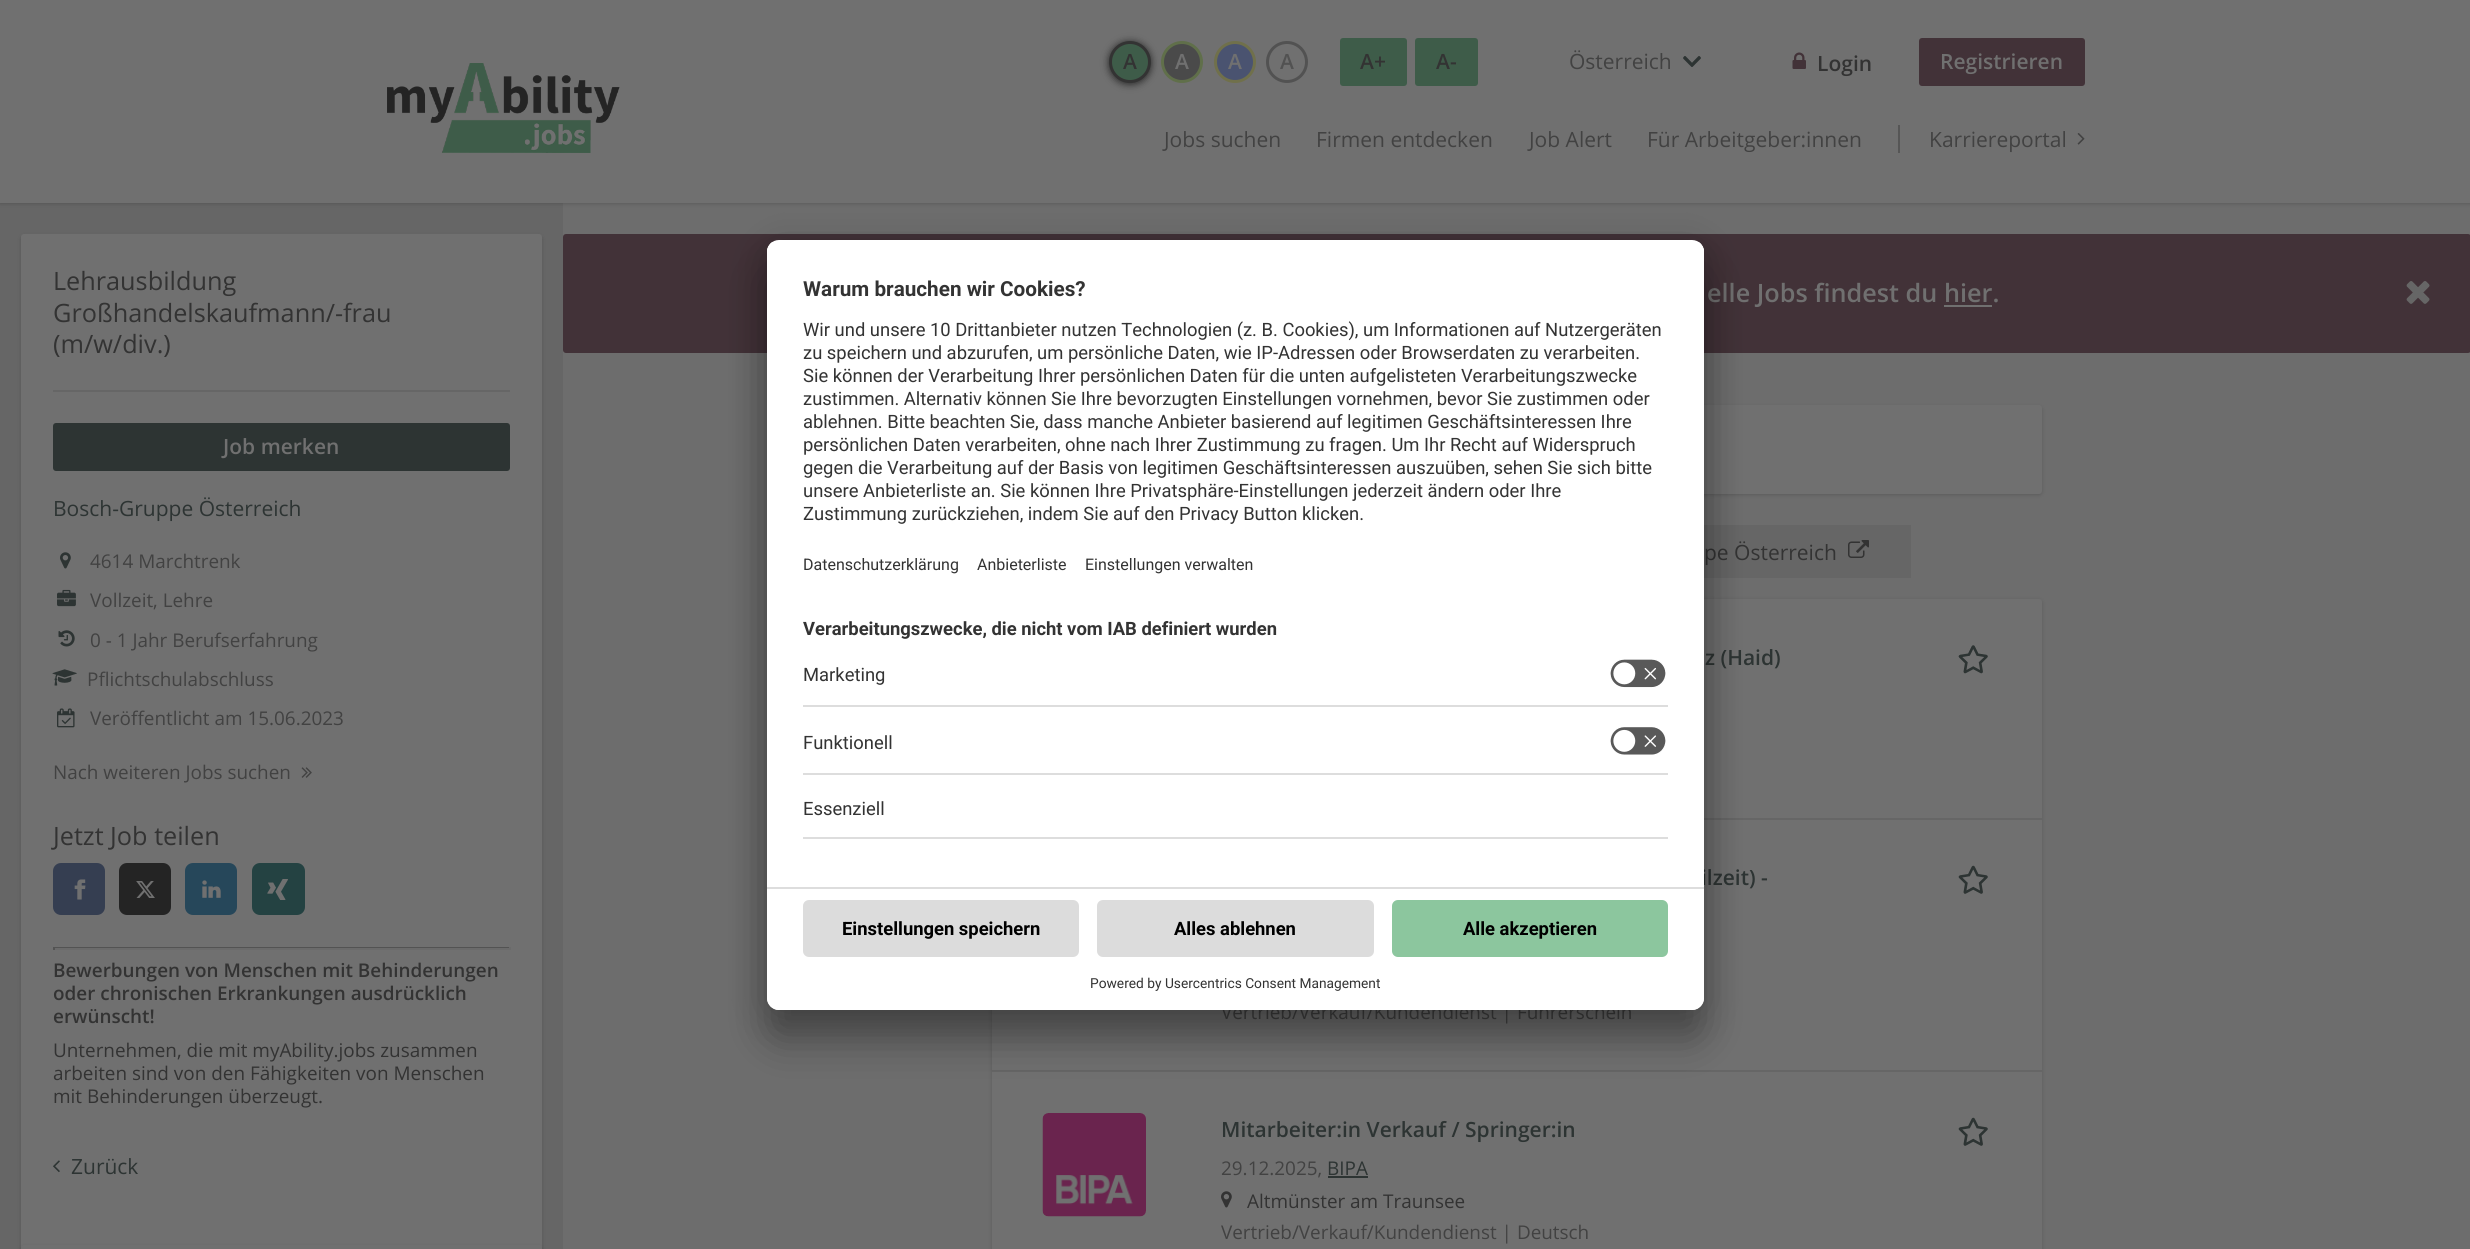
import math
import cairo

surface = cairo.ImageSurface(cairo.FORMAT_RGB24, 2470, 1249)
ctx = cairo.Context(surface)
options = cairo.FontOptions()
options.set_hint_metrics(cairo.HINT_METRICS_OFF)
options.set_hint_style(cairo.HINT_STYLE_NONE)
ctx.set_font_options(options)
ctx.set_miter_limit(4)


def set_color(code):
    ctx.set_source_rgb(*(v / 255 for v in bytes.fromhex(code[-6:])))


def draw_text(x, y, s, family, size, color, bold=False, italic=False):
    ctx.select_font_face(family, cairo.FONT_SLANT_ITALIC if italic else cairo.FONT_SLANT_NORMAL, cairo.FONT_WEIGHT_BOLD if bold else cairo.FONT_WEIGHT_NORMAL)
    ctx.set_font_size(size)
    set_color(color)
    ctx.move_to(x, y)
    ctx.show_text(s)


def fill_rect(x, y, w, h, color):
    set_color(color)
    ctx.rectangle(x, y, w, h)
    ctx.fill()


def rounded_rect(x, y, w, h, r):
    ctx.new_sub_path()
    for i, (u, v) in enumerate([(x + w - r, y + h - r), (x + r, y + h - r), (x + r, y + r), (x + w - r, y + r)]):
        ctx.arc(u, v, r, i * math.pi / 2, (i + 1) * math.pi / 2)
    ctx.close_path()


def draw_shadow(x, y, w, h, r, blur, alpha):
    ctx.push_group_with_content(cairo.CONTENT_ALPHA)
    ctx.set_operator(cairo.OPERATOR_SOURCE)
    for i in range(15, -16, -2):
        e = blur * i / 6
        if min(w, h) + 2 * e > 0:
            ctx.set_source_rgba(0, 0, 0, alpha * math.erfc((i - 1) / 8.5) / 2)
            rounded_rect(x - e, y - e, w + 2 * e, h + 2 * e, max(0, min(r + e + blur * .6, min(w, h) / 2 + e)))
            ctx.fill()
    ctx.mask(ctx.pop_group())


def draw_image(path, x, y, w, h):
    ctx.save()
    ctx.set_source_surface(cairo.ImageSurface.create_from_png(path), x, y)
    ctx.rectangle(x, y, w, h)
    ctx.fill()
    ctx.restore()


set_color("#6d6d6d")
ctx.paint()
fill_rect(0, 203, 563, 1046, "#666666")
set_color("#242424")
draw_shadow(0, 2, 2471, 202, 0, 2, 0.25)
fill_rect(0, 0, 2470, 203, "#707070")
draw_image("assets/img1.png", 387, 63, 233, 90)
set_color("#242424")
draw_shadow(1109, 42, 42, 42, 21, 4, 1)
set_color("#3e5c49")
ctx.arc(1130, 62, 19.5, 0, 2 * math.pi)
ctx.fill_preserve()
set_color("#333333")
ctx.set_line_width(3)
ctx.stroke()
draw_text(1123, 69, "A", "Open Sans SemiBold", 21, "#333333")
set_color("#4a4a4a")
ctx.new_path()
ctx.arc(1182, 62, 19.5, 0, 2 * math.pi)
ctx.fill_preserve()
set_color("#606f4a")
ctx.stroke()
draw_text(1175, 69, "A", "Open Sans SemiBold", 21, "#707070")
set_color("#4a5370")
ctx.new_path()
ctx.arc(1235, 62, 19.5, 0, 2 * math.pi)
ctx.fill_preserve()
set_color("#70704b")
ctx.stroke()
draw_text(1228, 69, "A", "Open Sans SemiBold", 21, "#707070")
ctx.new_path()
ctx.arc(1287, 62, 19.5, 0, 2 * math.pi)
set_color("#525252")
ctx.stroke()
draw_text(1280, 69, "A", "Open Sans SemiBold", 21, "#525252")
set_color("#3e5c49")
rounded_rect(1340, 38, 67, 48, 3)
ctx.fill()
draw_text(1360, 69, "A+", "Open Sans SemiBold", 21, "#333333")
set_color("#3e5c49")
rounded_rect(1415, 38, 63, 48, 3)
ctx.fill()
draw_text(1436, 69, "A-", "Open Sans SemiBold", 21, "#333333")
draw_text(1569, 69, "Österreich", "Open Sans", 21, "#424242")
draw_image("assets/img2.png", 1683, 56, 18, 11)
draw_image("assets/img3.png", 1792, 52, 14, 17)
draw_text(1817, 71, "Login", "Open Sans SemiBold", 21, "#333333")
set_color("#423238")
rounded_rect(1919, 38, 166, 48, 3)
ctx.fill()
draw_text(1940, 69, "Registrieren", "Open Sans SemiBold", 21, "#707070")
draw_text(1164, 147, "Jobs suchen", "Open Sans", 21, "#424242")
draw_text(1316, 147, "Firmen entdecken", "Open Sans", 21, "#424242")
draw_text(1529, 147, "Job Alert", "Open Sans", 21, "#424242")
draw_text(1647, 147, "Für Arbeitgeber:innen", "Open Sans", 21, "#424242")
fill_rect(1898, 125, 2, 28, "#565656")
draw_text(1929, 147, "Karriereportal", "Open Sans", 21, "#424242")
draw_image("assets/img4.png", 2077, 133, 8, 12)
set_color("#242424")
draw_shadow(21, 236, 521, 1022, 3, 2, 0.25)
set_color("#707070")
rounded_rect(21, 234, 521, 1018, 3)
ctx.fill()
fill_rect(53, 390, 457, 2, "#666666")
draw_text(53, 290, "Lehrausbildung", "Open Sans", 25.25, "#333333")
draw_text(53, 322, "Großhandelskaufmann/-frau", "Open Sans", 25.25, "#333333")
draw_text(53, 353, "(m/w/div.)", "Open Sans", 25.25, "#333333")
set_color("#2d3433")
rounded_rect(53, 423, 457, 48, 3)
ctx.fill()
draw_text(223, 454, "Job merken", "Open Sans SemiBold", 21, "#707070")
draw_text(53, 516, "Bosch-Gruppe Österreich", "Open Sans", 21, "#2d3433")
draw_image("assets/img5.png", 60, 552, 11, 17)
draw_text(90, 568, "4614 Marchtrenk", "Open Sans", 18.9, "#424242")
draw_image("assets/img6.png", 57, 589, 19, 18)
draw_text(90, 607, "Vollzeit, Lehre", "Open Sans", 18.9, "#424242")
draw_image("assets/img7.png", 58, 630, 17, 17)
draw_text(90, 647, "0 - 1 Jahr Berufserfahrung", "Open Sans", 18.9, "#424242")
draw_image("assets/img8.png", 52, 669, 25, 17)
draw_text(87, 686, "Pflichtschulabschluss", "Open Sans", 18.9, "#424242")
draw_image("assets/img9.png", 57, 708, 18, 20)
draw_text(90, 725, "Veröffentlicht am 15.06.2023", "Open Sans", 18.9, "#424242")
draw_text(53, 779, "Nach weiteren Jobs suchen", "Open Sans", 18.9, "#424242")
draw_image("assets/img10.png", 301, 767, 11, 11)
draw_text(53, 845, "Jetzt Job teilen", "Open Sans", 25.25, "#333333")
set_color("#353e51")
rounded_rect(53, 863, 52, 52, 8)
ctx.fill()
draw_image("assets/img11.png", 74, 879, 12, 21)
set_color("#242424")
rounded_rect(119, 863, 52, 52, 8)
ctx.fill()
draw_image("assets/img12.png", 136, 881, 19, 17)
set_color("#26475a")
rounded_rect(185, 863, 52, 52, 8)
ctx.fill()
draw_image("assets/img13.png", 202, 880, 19, 18)
set_color("#244242")
rounded_rect(252, 863, 53, 52, 8)
ctx.fill()
draw_image("assets/img14.png", 267, 879, 21, 21)
fill_rect(53, 947, 457, 1, "#535353")
fill_rect(509, 947, 2, 3, "#6b6b6b")
fill_rect(53, 948, 457, 2, "#6b6b6b")
fill_rect(53, 947, 2, 3, "#535353")
draw_text(53, 977, "Bewerbungen von Menschen mit Behinderungen", "Open Sans SemiBold", 18.9, "#333333")
draw_text(53, 1000, "oder chronischen Erkrankungen ausdrücklich", "Open Sans SemiBold", 18.9, "#333333")
draw_text(53, 1023, "erwünscht!", "Open Sans SemiBold", 18.9, "#333333")
draw_text(53, 1057, "Unternehmen, die mit myAbility.jobs zusammen", "Open Sans", 18.9, "#333333")
draw_text(53, 1080, "arbeiten sind von den Fähigkeiten von Menschen", "Open Sans", 18.9, "#333333")
draw_text(53, 1103, "mit Behinderungen überzeugt.", "Open Sans", 18.9, "#333333")
draw_image("assets/img15.png", 53, 1160, 7, 13)
draw_text(71, 1174, "Zurück", "Open Sans", 21, "#2d3433")
set_color("#242424")
draw_shadow(21, 1247, 521, 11, 3, 2, 0.25)
set_color("#707070")
rounded_rect(21, 1245, 521, 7, 3)
ctx.fill()
set_color("#423238")
rounded_rect(563, 234, 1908, 119, 3)
ctx.fill()
draw_text(1707, 302, "elle Jobs findest du hier.", "Open Sans SemiBold", 25.25, "#707070")
fill_rect(1944, 305, 48, 2, "#707070")
draw_image("assets/img16.png", 2406, 281, 24, 23)
set_color("#242424")
draw_shadow(992, 407, 1050, 88, 3, 2, 0.25)
set_color("#707070")
rounded_rect(992, 405, 1050, 89, 3)
ctx.fill()
fill_rect(1704, 525, 207, 53, "#666666")
draw_text(1704, 560, "pe Österreich", "Open Sans", 21, "#333333")
draw_image("assets/img17.png", 1848, 540, 21, 18)
set_color("#242424")
draw_shadow(992, 600, 1050, 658, 3, 2, 0.25)
set_color("#707070")
rounded_rect(992, 599, 1050, 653, 3)
ctx.fill()
draw_text(1705, 665, "z (Haid)", "Open Sans SemiBold", 21, "#2d3433")
draw_image("assets/img18.png", 1958, 645, 30, 29)
fill_rect(1704, 818, 338, 2, "#666666")
draw_text(1701, 885, "ilzeit) -", "Open Sans SemiBold", 21, "#2d3433")
draw_text(1221, 1019, "Vertrieb/Verkauf/Kundendienst | Führerschein", "Open Sans", 18.9, "#424242")
draw_image("assets/img19.png", 1958, 865, 30, 29)
fill_rect(992, 1070, 1050, 2, "#666666")
draw_image("assets/img20.png", 1042, 1113, 104, 104)
draw_text(1221, 1137, "Mitarbeiter:in Verkauf / Springer:in", "Open Sans SemiBold", 21, "#2d3433")
draw_text(1221, 1175, "29.12.2025,", "Open Sans", 18.9, "#424242")
draw_text(1327, 1175, "BIPA", "Open Sans", 18.9, "#2d3433")
fill_rect(1328, 1176, 40, 2, "#2d3433")
draw_image("assets/img21.png", 1221, 1191, 11, 17)
draw_text(1247, 1208, "Altmünster am Traunsee", "Open Sans", 18.9, "#333333")
draw_text(1221, 1239, "Vertrieb/Verkauf/Kundendienst | Deutsch", "Open Sans", 18.9, "#424242")
draw_image("assets/img19.png", 1958, 1117, 30, 29)
set_color("#000000")
draw_shadow(767, 270, 937, 770, 12, 21, 0.3)
draw_shadow(767, 248, 937, 769, 12, 19.5, 0.22)
set_color("#ffffff")
rounded_rect(767, 240, 937, 770, 12)
ctx.fill()
ctx.save()
rounded_rect(767, 240, 937, 770, 12)
ctx.clip()
ctx.new_path()
ctx.move_to(779, 240)
ctx.line_to(1692, 240)
ctx.curve_to(1698.5, 240, 1704, 245.5, 1704, 252)
ctx.line_to(1704, 887)
ctx.line_to(767, 887)
ctx.line_to(767, 252)
ctx.curve_to(767, 245.5, 772.5, 240, 779, 240)
ctx.close_path()
ctx.clip()
fill_rect(767, 242, 937, 645, "#ffffff")
fill_rect(767, 242, 937, 358, "#ffffff")
ctx.restore()
draw_text(803, 296, "Warum brauchen wir Cookies?", "Roboto", 20.7, "#333333", bold=True)
draw_text(803, 336, "Wir und unsere 10 Drittanbieter nutzen Technologien (z. B. Cookies), um Informationen auf Nutzergeräten", "Roboto", 18.4, "#333333")
draw_text(803, 359, "zu speichern und abzurufen, um persönliche Daten, wie IP-Adressen oder Browserdaten zu verarbeiten.", "Roboto", 18.4, "#333333")
draw_text(803, 382, "Sie können der Verarbeitung Ihrer persönlichen Daten für die unten aufgelisteten Verarbeitungszwecke", "Roboto", 18.4, "#333333")
draw_text(803, 405, "zustimmen. Alternativ können Sie Ihre bevorzugten Einstellungen vornehmen, bevor Sie zustimmen oder", "Roboto", 18.4, "#333333")
draw_text(803, 428, "ablehnen. Bitte beachten Sie, dass manche Anbieter basierend auf legitimen Geschäftsinteressen Ihre", "Roboto", 18.4, "#333333")
draw_text(803, 451, "persönlichen Daten verarbeiten, ohne nach Ihrer Zustimmung zu fragen. Um Ihr Recht auf Widerspruch", "Roboto", 18.4, "#333333")
draw_text(803, 474, "gegen die Verarbeitung auf der Basis von legitimen Geschäftsinteressen auszuüben, sehen Sie sich bitte", "Roboto", 18.4, "#333333")
draw_text(803, 497, "unsere Anbieterliste an. Sie können Ihre Privatsphäre-Einstellungen jederzeit ändern oder Ihre", "Roboto", 18.4, "#333333")
draw_text(803, 520, "Zustimmung zurückziehen, indem Sie auf den Privacy Button klicken.", "Roboto", 18.4, "#333333")
draw_text(803, 570, "Datenschutzerklärung", "Roboto", 16, "#333333")
draw_text(977, 570, "Anbieterliste", "Roboto", 16, "#333333")
draw_text(1085, 570, "Einstellungen verwalten", "Roboto", 16, "#333333")
draw_text(803, 635, "Verarbeitungszwecke, die nicht vom IAB definiert wurden", "Roboto", 18.4, "#333333", bold=True)
fill_rect(803, 705, 865, 2, "#dddddd")
draw_text(803, 681, "Marketing", "Roboto", 18.4, "#333333")
draw_image("assets/img22.png", 1610, 659, 56, 29)
fill_rect(803, 773, 865, 2, "#dddddd")
draw_text(803, 749, "Funktionell", "Roboto", 18.4, "#333333")
draw_image("assets/img23.png", 1610, 727, 56, 28)
fill_rect(803, 837, 865, 2, "#dddddd")
draw_text(803, 815, "Essenziell", "Roboto", 18.4, "#333333")
set_color("#ffffff")
ctx.new_path()
ctx.move_to(767, 887)
ctx.line_to(1704, 887)
ctx.line_to(1704, 998)
ctx.curve_to(1704, 1004.5, 1698.5, 1010, 1692, 1010)
ctx.line_to(779, 1010)
ctx.curve_to(772.5, 1010, 767, 1004.5, 767, 998)
ctx.close_path()
ctx.fill()
fill_rect(767, 887, 937, 2, "#dddddd")
set_color("#dcdcdc")
rounded_rect(803, 900, 276, 57, 6)
ctx.fill()
draw_text(842, 935, "Einstellungen speichern", "Roboto", 18.4, "#000000", bold=True)
set_color("#dcdcdc")
rounded_rect(1097, 900, 277, 57, 6)
ctx.fill()
draw_text(1174, 935, "Alles ablehnen", "Roboto", 18.4, "#000000", bold=True)
set_color("#8cc69e")
rounded_rect(1392, 900, 276, 57, 6)
ctx.fill()
draw_text(1463, 935, "Alle akzeptieren", "Roboto", 18.4, "#000000", bold=True)
draw_text(1090, 988, "Powered by Usercentrics Consent Management", "Roboto", 13.75, "#333333")
surface.write_to_png("output.png")
